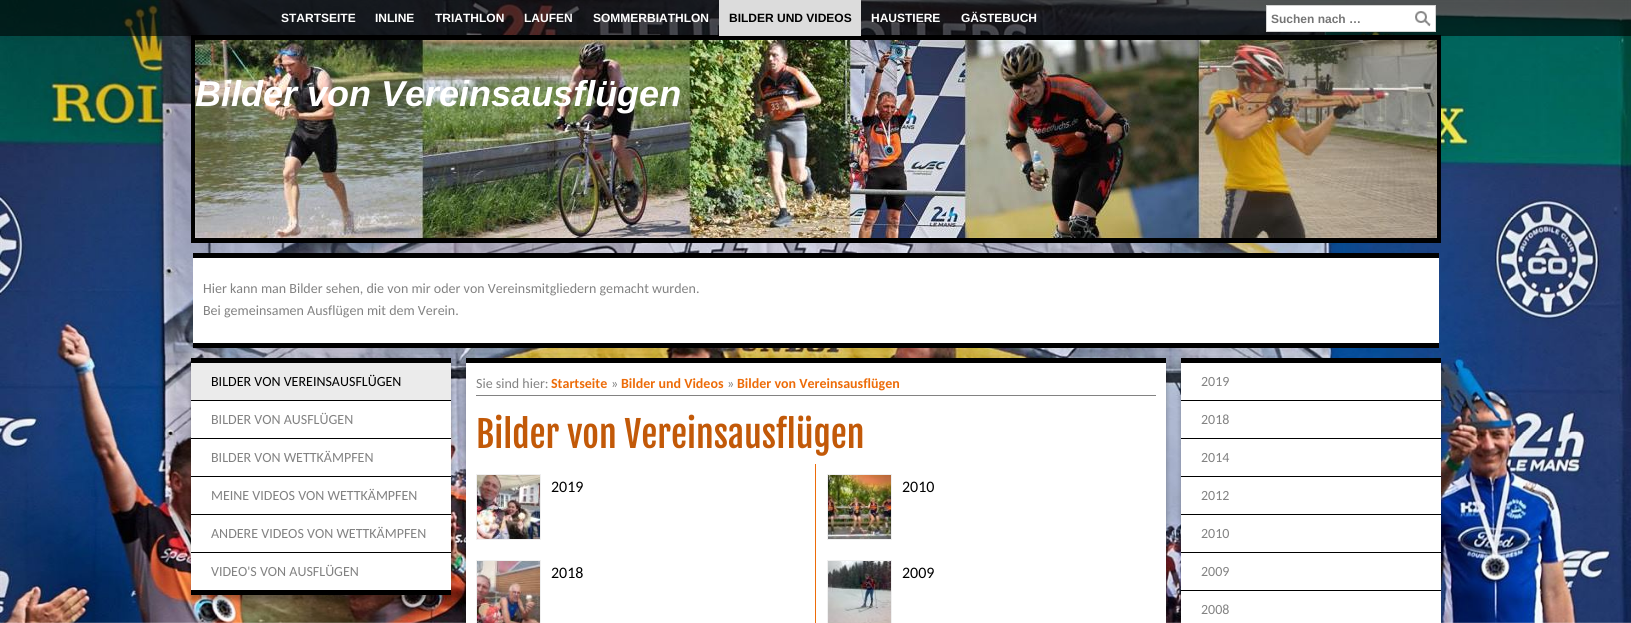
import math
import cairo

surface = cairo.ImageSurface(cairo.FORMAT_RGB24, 1631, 623)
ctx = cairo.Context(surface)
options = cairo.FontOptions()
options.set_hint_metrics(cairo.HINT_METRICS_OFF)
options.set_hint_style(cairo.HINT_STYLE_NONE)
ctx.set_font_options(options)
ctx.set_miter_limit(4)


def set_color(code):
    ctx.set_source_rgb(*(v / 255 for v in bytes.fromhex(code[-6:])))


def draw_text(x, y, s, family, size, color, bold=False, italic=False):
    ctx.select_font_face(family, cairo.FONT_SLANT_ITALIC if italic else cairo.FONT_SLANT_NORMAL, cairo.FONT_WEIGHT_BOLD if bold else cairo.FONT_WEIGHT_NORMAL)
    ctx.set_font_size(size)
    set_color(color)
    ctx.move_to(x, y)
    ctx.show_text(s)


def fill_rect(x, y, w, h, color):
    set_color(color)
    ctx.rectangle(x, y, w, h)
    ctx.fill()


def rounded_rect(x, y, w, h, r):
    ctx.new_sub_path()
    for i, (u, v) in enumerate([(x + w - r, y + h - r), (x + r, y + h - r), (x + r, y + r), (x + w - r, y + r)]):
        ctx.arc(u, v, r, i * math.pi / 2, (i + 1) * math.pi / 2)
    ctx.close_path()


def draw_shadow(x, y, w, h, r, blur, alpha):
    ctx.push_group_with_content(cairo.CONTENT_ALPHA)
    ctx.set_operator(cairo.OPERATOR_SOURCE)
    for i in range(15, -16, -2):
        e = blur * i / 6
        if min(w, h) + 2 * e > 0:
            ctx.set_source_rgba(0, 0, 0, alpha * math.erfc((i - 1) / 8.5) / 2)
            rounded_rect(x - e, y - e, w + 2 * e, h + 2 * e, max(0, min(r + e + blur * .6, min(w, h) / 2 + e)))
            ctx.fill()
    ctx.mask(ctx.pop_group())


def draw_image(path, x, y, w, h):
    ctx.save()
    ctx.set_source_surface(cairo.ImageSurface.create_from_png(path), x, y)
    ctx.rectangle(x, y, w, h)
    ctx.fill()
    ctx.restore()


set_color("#ffffff")
ctx.paint()
draw_image("assets/img1.png", 0, 0, 1631, 623)
fill_rect(191, 35, 1250, 5, "#000000")
fill_rect(1437, 35, 4, 208, "#000000")
fill_rect(191, 238, 1250, 5, "#000000")
fill_rect(191, 35, 4, 208, "#000000")
ctx.set_source_rgba(0, 0, 0, 0.6)
ctx.rectangle(0, 0, 1631, 36)
ctx.fill()
draw_text(281, 22, "STARTSEITE", "Liberation Sans", 12, "#ffffff", bold=True)
draw_text(375, 22, "INLINE", "Liberation Sans", 12, "#ffffff", bold=True)
draw_text(435, 22, "TRIATHLON", "Liberation Sans", 12, "#ffffff", bold=True)
draw_text(524, 22, "LAUFEN", "Liberation Sans", 12, "#ffffff", bold=True)
draw_text(593, 22, "SOMMERBIATHLON", "Liberation Sans", 12, "#ffffff", bold=True)
fill_rect(719, 0, 142, 36, "#dcdcdc")
draw_text(729, 22, "BILDER UND VIDEOS", "Liberation Sans", 12, "#000000", bold=True)
draw_text(871, 22, "HAUSTIERE", "Liberation Sans", 12, "#ffffff", bold=True)
draw_text(961, 22, "GÄSTEBUCH", "Liberation Sans", 12, "#ffffff", bold=True)
ctx.rectangle(1266.5, 5.5, 169, 26)
ctx.fill_preserve()
set_color("#d3d3d3")
ctx.set_line_width(1)
ctx.stroke()
draw_text(1271, 23, "Suchen nach …", "Liberation Sans", 12, "#757575", bold=True)
draw_image("assets/img2.png", 1415, 11, 16, 16)
draw_image("assets/img3.png", 195, 40, 1242, 198)
draw_text(195, 106, "Bilder von Vereinsausflügen", "Liberation Sans", 36, "#ffffff", bold=True, italic=True)
fill_rect(193, 258, 1246, 85, "#ffffff")
fill_rect(193, 253, 1246, 5, "#000000")
fill_rect(193, 343, 1246, 5, "#000000")
draw_text(203, 293, "Hier kann man Bilder sehen, die von mir oder von Vereinsmitgliedern gemacht wurden.", "Carlito", 14, "#828282")
draw_text(203, 315, "Bei gemeinsamen Ausflügen mit dem Verein.", "Carlito", 14, "#828282")
set_color("#000000")
draw_shadow(191, 363, 260, 237, 0, 2.5, 0.3)
fill_rect(191, 401, 260, 189, "#ffffff")
fill_rect(191, 358, 260, 5, "#000000")
fill_rect(191, 590, 260, 5, "#000000")
fill_rect(191, 363, 260, 37, "#ebebeb")
fill_rect(191, 400, 260, 1, "#000000")
draw_text(211, 386, "BILDER VON VEREINSAUSFLÜGEN", "Carlito", 14, "#000000")
fill_rect(191, 438, 260, 1, "#000000")
draw_text(211, 424, "BILDER VON AUSFLÜGEN", "Carlito", 14, "#828282")
fill_rect(191, 476, 260, 1, "#000000")
draw_text(211, 462, "BILDER VON WETTKÄMPFEN", "Carlito", 14, "#828282")
fill_rect(191, 514, 260, 1, "#000000")
draw_text(211, 500, "MEINE VIDEOS VON WETTKÄMPFEN", "Carlito", 14, "#828282")
fill_rect(191, 552, 260, 1, "#000000")
draw_text(211, 538, "ANDERE VIDEOS VON WETTKÄMPFEN", "Carlito", 14, "#828282")
draw_text(211, 576, "VIDEO'S VON AUSFLÜGEN", "Carlito", 14, "#828282")
set_color("#000000")
draw_shadow(466, 363, 700, 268, 0, 2.5, 0.3)
fill_rect(466, 363, 700, 260, "#ffffff")
fill_rect(466, 358, 700, 5, "#000000")
fill_rect(476, 395, 680, 1, "#828282")
draw_text(476, 388, "Sie sind hier:", "Carlito", 14, "#828282")
draw_text(551, 388, "Startseite", "Carlito", 14, "#ed6c09", bold=True)
draw_text(611, 388, "»", "Carlito", 14, "#828282")
draw_text(621, 388, "Bilder und Videos", "Carlito", 14, "#ed6c09", bold=True)
draw_text(727, 388, "»", "Carlito", 14, "#828282")
draw_text(737, 388, "Bilder von Vereinsausflügen", "Carlito", 14, "#ed6c09", bold=True)
draw_text(476, 448, "Bilder von Vereinsausflügen", "Fjalla One", 36, "#c25908")
fill_rect(815, 464, 1, 159, "#ed6c09")
ctx.rectangle(476.5, 474.5, 64, 65)
set_color("#f0f0f0")
ctx.stroke()
draw_image("assets/img4.png", 477, 475, 63, 64)
draw_text(551, 492, "2019", "Carlito", 16, "#000000")
ctx.rectangle(476.5, 560.5, 64, 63)
set_color("#f0f0f0")
ctx.stroke()
draw_image("assets/img5.png", 477, 561, 63, 62)
draw_text(551, 578, "2018", "Carlito", 16, "#000000")
ctx.rectangle(827.5, 474.5, 64, 65)
set_color("#f0f0f0")
ctx.stroke()
draw_image("assets/img6.png", 828, 475, 63, 64)
draw_text(902, 492, "2010", "Carlito", 16, "#000000")
ctx.rectangle(827.5, 560.5, 64, 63)
set_color("#f0f0f0")
ctx.stroke()
draw_image("assets/img7.png", 828, 561, 63, 62)
draw_text(902, 578, "2009", "Carlito", 16, "#000000")
set_color("#000000")
draw_shadow(1181, 363, 260, 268, 0, 2.5, 0.3)
fill_rect(1181, 363, 260, 260, "#ffffff")
fill_rect(1181, 358, 260, 5, "#000000")
fill_rect(1181, 400, 260, 1, "#000000")
draw_text(1201, 386, "2019", "Carlito", 14, "#828282")
fill_rect(1181, 438, 260, 1, "#000000")
draw_text(1201, 424, "2018", "Carlito", 14, "#828282")
fill_rect(1181, 476, 260, 1, "#000000")
draw_text(1201, 462, "2014", "Carlito", 14, "#828282")
fill_rect(1181, 514, 260, 1, "#000000")
draw_text(1201, 500, "2012", "Carlito", 14, "#828282")
fill_rect(1181, 552, 260, 1, "#000000")
draw_text(1201, 538, "2010", "Carlito", 14, "#828282")
fill_rect(1181, 590, 260, 1, "#000000")
draw_text(1201, 576, "2009", "Carlito", 14, "#828282")
draw_text(1201, 614, "2008", "Carlito", 14, "#828282")
surface.write_to_png("output.png")
